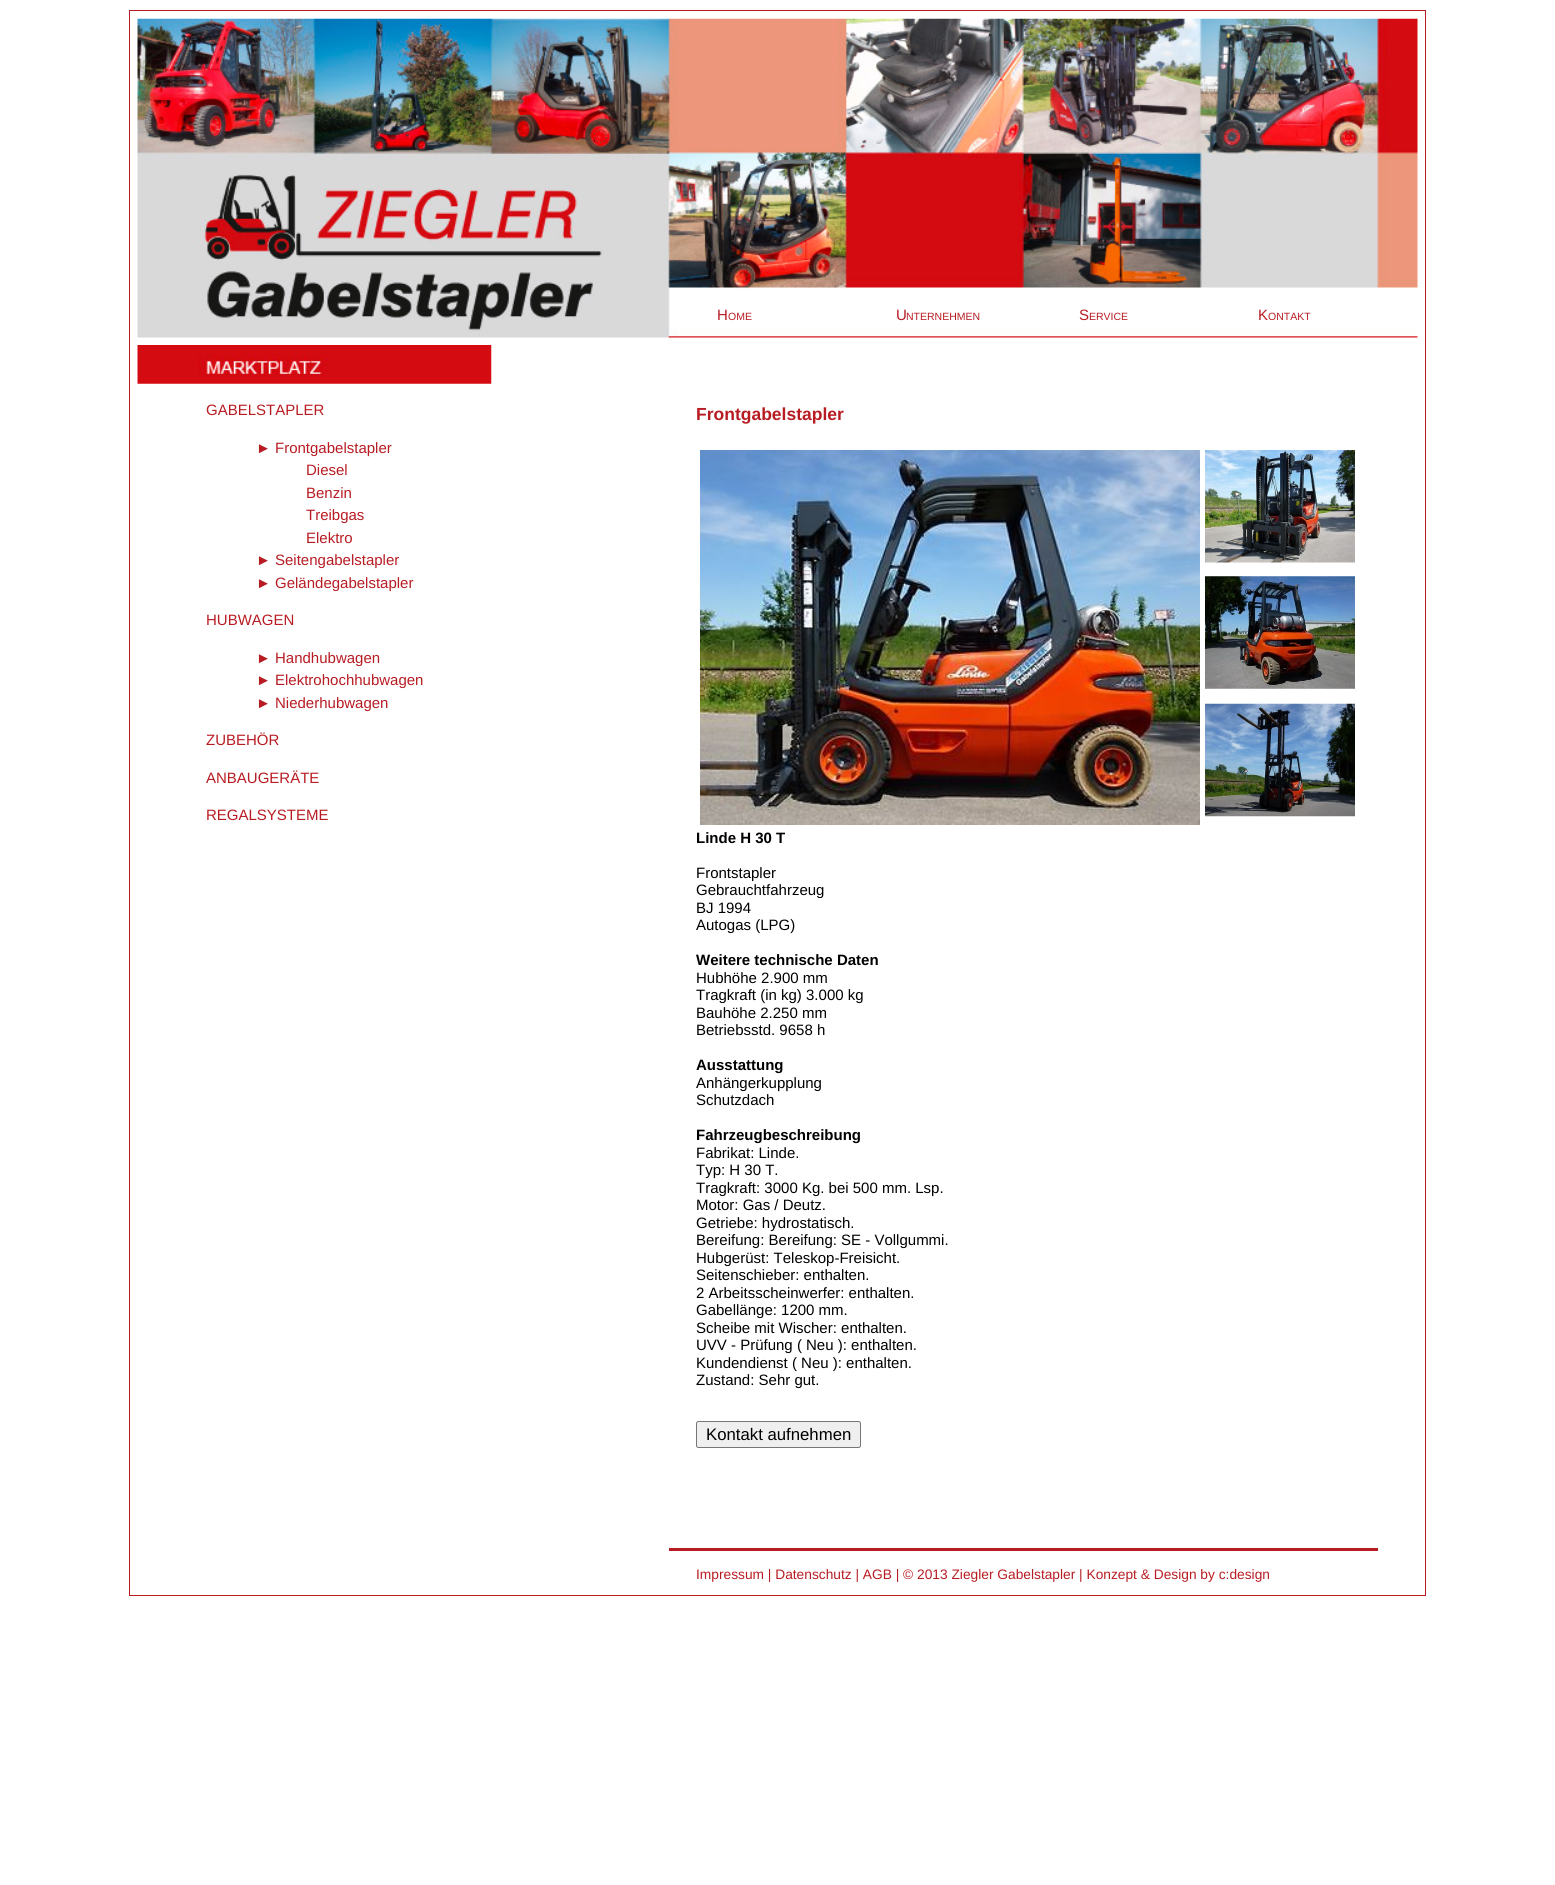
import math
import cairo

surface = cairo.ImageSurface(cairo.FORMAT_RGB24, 1555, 1885)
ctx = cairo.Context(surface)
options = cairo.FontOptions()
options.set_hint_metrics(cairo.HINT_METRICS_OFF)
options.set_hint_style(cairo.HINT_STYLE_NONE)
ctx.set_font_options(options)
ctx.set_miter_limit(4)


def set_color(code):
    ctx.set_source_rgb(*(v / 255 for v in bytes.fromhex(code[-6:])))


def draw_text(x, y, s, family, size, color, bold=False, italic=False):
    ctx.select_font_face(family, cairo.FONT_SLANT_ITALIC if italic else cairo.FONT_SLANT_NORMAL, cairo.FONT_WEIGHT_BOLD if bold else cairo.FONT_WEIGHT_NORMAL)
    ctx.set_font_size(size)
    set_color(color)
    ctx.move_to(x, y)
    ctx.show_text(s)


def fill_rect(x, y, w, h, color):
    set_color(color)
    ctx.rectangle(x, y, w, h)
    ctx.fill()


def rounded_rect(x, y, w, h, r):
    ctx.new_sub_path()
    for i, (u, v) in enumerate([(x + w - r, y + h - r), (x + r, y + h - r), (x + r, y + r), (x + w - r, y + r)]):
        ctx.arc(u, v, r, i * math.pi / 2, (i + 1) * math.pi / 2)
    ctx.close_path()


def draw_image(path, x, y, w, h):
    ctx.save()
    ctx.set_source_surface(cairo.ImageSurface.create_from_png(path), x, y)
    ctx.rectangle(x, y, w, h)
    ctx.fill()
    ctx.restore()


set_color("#ffffff")
ctx.paint()
ctx.rectangle(129.5, 10.5, 1296, 1585)
set_color("#b81c23")
ctx.set_line_width(1)
ctx.stroke()
draw_image("assets/img1.png", 137, 18, 1281, 321)
draw_text(717, 320, "H", "Liberation Sans", 15, "#b81c23")
draw_text(728, 320, "OME", "Liberation Sans", 10.5, "#b81c23")
draw_text(896, 320, "U", "Liberation Sans", 15, "#b81c23")
draw_text(906, 320, "NTERNEHMEN", "Liberation Sans", 10.5, "#b81c23")
draw_text(1079, 320, "S", "Liberation Sans", 15, "#b81c23")
draw_text(1089, 320, "ERVICE", "Liberation Sans", 10.5, "#b81c23")
draw_text(1258, 320, "K", "Liberation Sans", 15, "#b81c23")
draw_text(1268, 320, "ONTAKT", "Liberation Sans", 10.5, "#b81c23")
draw_image("assets/img2.png", 137, 345, 355, 39)
draw_text(206, 415, "GABELSTAPLER", "Liberation Sans", 15, "#b81c23")
draw_text(256, 453, "► Frontgabelstapler", "Liberation Sans", 15, "#b81c23")
draw_text(306, 475, "Diesel", "Liberation Sans", 15, "#b81c23")
draw_text(306, 498, "Benzin", "Liberation Sans", 15, "#b81c23")
draw_text(306, 520, "Treibgas", "Liberation Sans", 15, "#b81c23")
draw_text(306, 543, "Elektro", "Liberation Sans", 15, "#b81c23")
draw_text(256, 565, "► Seitengabelstapler", "Liberation Sans", 15, "#b81c23")
draw_text(256, 588, "► Geländegabelstapler", "Liberation Sans", 15, "#b81c23")
draw_text(206, 625, "HUBWAGEN", "Liberation Sans", 15, "#b81c23")
draw_text(256, 663, "► Handhubwagen", "Liberation Sans", 15, "#b81c23")
draw_text(256, 685, "► Elektrohochhubwagen", "Liberation Sans", 15, "#b81c23")
draw_text(256, 708, "► Niederhubwagen", "Liberation Sans", 15, "#b81c23")
draw_text(206, 745, "ZUBEHÖR", "Liberation Sans", 15, "#b81c23")
draw_text(206, 783, "ANBAUGERÄTE", "Liberation Sans", 15, "#b81c23")
draw_text(206, 820, "REGALSYSTEME", "Liberation Sans", 15, "#b81c23")
draw_text(696, 420, "Frontgabelstapler", "Liberation Sans", 17.5, "#b81c23", bold=True)
draw_image("assets/img3.png", 700, 450, 500, 375)
draw_image("assets/img4.png", 1205, 450, 150, 113)
draw_image("assets/img5.png", 1205, 576, 150, 113)
draw_image("assets/img6.png", 1205, 703, 150, 114)
draw_text(696, 843, "Linde H 30 T", "Liberation Sans", 15, "#000000", bold=True)
draw_text(696, 878, "Frontstapler", "Liberation Sans", 15, "#000000")
draw_text(696, 895, "Gebrauchtfahrzeug", "Liberation Sans", 15, "#000000")
draw_text(696, 913, "BJ 1994", "Liberation Sans", 15, "#000000")
draw_text(696, 930, "Autogas (LPG)", "Liberation Sans", 15, "#000000")
draw_text(696, 965, "Weitere technische Daten", "Liberation Sans", 15, "#000000", bold=True)
draw_text(696, 983, "Hubhöhe 2.900 mm", "Liberation Sans", 15, "#000000")
draw_text(696, 1000, "Tragkraft (in kg) 3.000 kg", "Liberation Sans", 15, "#000000")
draw_text(696, 1018, "Bauhöhe 2.250 mm", "Liberation Sans", 15, "#000000")
draw_text(696, 1035, "Betriebsstd. 9658 h", "Liberation Sans", 15, "#000000")
draw_text(696, 1070, "Ausstattung", "Liberation Sans", 15, "#000000", bold=True)
draw_text(696, 1088, "Anhängerkupplung", "Liberation Sans", 15, "#000000")
draw_text(696, 1105, "Schutzdach", "Liberation Sans", 15, "#000000")
draw_text(696, 1140, "Fahrzeugbeschreibung", "Liberation Sans", 15, "#000000", bold=True)
draw_text(696, 1158, "Fabrikat: Linde.", "Liberation Sans", 15, "#000000")
draw_text(696, 1175, "Typ: H 30 T.", "Liberation Sans", 15, "#000000")
draw_text(696, 1193, "Tragkraft: 3000 Kg. bei 500 mm. Lsp.", "Liberation Sans", 15, "#000000")
draw_text(696, 1210, "Motor: Gas / Deutz.", "Liberation Sans", 15, "#000000")
draw_text(696, 1228, "Getriebe: hydrostatisch.", "Liberation Sans", 15, "#000000")
draw_text(696, 1245, "Bereifung: Bereifung: SE - Vollgummi.", "Liberation Sans", 15, "#000000")
draw_text(696, 1263, "Hubgerüst: Teleskop-Freisicht.", "Liberation Sans", 15, "#000000")
draw_text(696, 1280, "Seitenschieber: enthalten.", "Liberation Sans", 15, "#000000")
draw_text(696, 1298, "2 Arbeitsscheinwerfer: enthalten.", "Liberation Sans", 15, "#000000")
draw_text(696, 1315, "Gabellänge: 1200 mm.", "Liberation Sans", 15, "#000000")
draw_text(696, 1333, "Scheibe mit Wischer: enthalten.", "Liberation Sans", 15, "#000000")
draw_text(696, 1350, "UVV - Prüfung ( Neu ): enthalten.", "Liberation Sans", 15, "#000000")
draw_text(696, 1368, "Kundendienst ( Neu ): enthalten.", "Liberation Sans", 15, "#000000")
draw_text(696, 1385, "Zustand: Sehr gut.", "Liberation Sans", 15, "#000000")
set_color("#efefef")
rounded_rect(696.5, 1421.5, 164, 26, 2)
ctx.fill_preserve()
set_color("#767676")
ctx.stroke()
draw_text(706, 1440, "Kontakt aufnehmen", "Liberation Sans", 16.75, "#000000")
fill_rect(669, 1548, 709, 3, "#b81c23")
draw_text(696, 1579, "Impressum | Datenschutz | AGB | © 2013 Ziegler Gabelstapler | Konzept & Design by c:design", "Liberation Sans", 13.75, "#b81c23")
surface.write_to_png("output.png")
